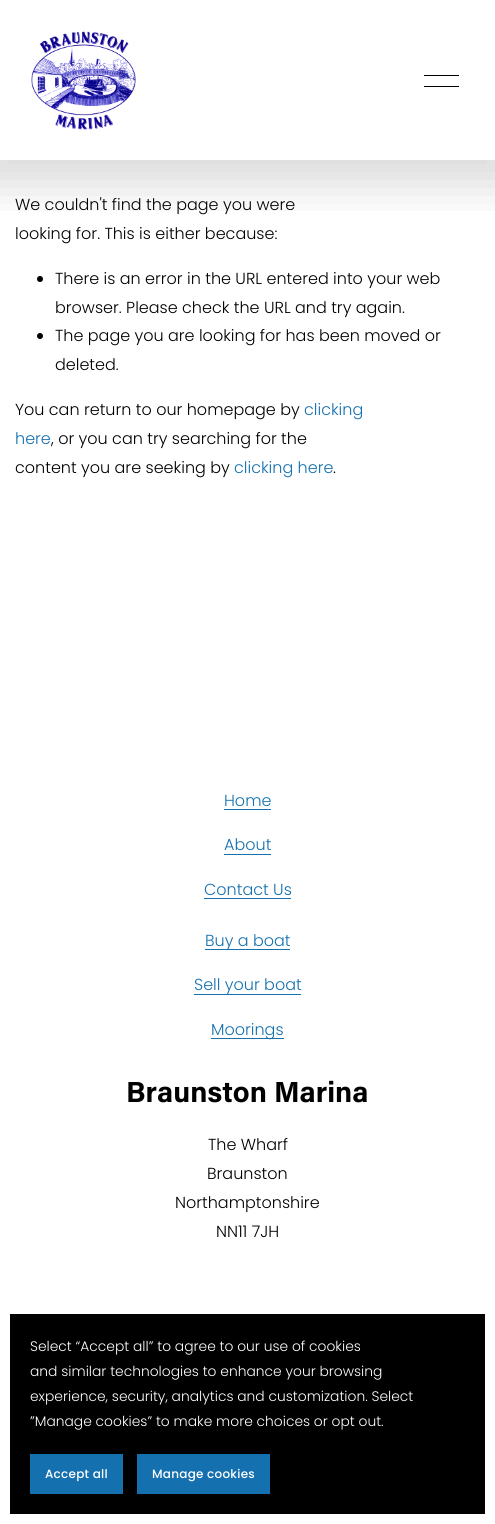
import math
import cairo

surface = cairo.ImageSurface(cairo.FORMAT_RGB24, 495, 1524)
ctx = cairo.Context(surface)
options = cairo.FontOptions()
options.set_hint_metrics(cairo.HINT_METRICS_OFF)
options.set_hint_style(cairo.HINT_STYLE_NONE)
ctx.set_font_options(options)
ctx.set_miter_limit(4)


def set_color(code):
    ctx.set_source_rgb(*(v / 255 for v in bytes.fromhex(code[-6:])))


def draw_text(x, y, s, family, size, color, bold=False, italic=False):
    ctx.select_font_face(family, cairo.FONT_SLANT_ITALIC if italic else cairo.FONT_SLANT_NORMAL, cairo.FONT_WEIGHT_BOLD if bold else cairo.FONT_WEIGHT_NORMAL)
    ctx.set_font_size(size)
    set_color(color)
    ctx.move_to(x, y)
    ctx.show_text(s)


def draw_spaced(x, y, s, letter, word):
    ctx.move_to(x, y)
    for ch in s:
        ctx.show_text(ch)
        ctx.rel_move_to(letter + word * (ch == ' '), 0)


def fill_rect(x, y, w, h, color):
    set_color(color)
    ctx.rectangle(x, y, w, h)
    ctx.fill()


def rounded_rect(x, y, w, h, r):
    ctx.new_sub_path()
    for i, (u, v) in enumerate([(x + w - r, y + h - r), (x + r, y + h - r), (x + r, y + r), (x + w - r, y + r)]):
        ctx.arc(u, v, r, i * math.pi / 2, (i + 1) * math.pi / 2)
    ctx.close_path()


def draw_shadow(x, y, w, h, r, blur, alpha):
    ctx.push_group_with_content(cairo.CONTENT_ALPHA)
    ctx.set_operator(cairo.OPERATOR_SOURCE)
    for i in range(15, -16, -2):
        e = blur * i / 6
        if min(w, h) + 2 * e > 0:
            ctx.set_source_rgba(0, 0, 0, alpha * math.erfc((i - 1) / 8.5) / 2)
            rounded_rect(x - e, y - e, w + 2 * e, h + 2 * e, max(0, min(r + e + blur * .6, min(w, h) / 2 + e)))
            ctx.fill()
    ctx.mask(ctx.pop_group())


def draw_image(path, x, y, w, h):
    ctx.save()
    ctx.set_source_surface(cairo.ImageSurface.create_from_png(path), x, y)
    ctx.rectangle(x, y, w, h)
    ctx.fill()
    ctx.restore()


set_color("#ffffff")
ctx.paint()
ctx.save()
ctx.rectangle(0, 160, 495, 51)
ctx.clip()
set_color("#000000")
draw_shadow(-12, 0, 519, 184, 0, 24, 0.15)
ctx.restore()
draw_image("assets/img1.png", 31, 31, 105, 99)
fill_rect(424, 75, 35, 1, "#000000")
fill_rect(424, 86, 35, 1, "#000000")
draw_text(15, 210, "We couldn't find the page you were", "Poppins Light", 16, "#000000")
draw_text(15, 239, "looking for. This is either because:", "Poppins Light", 16, "#000000")
ctx.new_path()
ctx.arc(40, 279, 3, 0, 2 * math.pi)
ctx.fill()
draw_text(55, 284, "There is an error in the URL entered into your web", "Poppins Light", 16, "#000000")
draw_text(55, 313, "browser. Please check the URL and try again.", "Poppins Light", 16, "#000000")
ctx.new_path()
ctx.arc(40, 336, 3, 0, 2 * math.pi)
ctx.fill()
draw_text(55, 341, "The page you are looking for has been moved or", "Poppins Light", 16, "#000000")
draw_text(55, 370, "deleted.", "Poppins Light", 16, "#000000")
draw_text(15, 415, "You can return to our homepage by", "Poppins Light", 16, "#000000")
draw_text(304, 415, "clicking", "Poppins Light", 16, "#1470af")
draw_text(15, 444, "here", "Poppins Light", 16, "#1470af")
draw_text(51, 444, ", or you can try searching for the", "Poppins Light", 16, "#000000")
draw_text(15, 473, "content you are seeking by", "Poppins Light", 16, "#000000")
draw_text(234, 473, "clicking here", "Poppins Light", 16, "#1470af")
draw_text(333, 473, ".", "Poppins Light", 16, "#000000")
draw_text(224, 806, "Home", "Poppins Light", 16, "#1470af")
fill_rect(224, 809, 47, 1, "#1470af")
draw_text(224, 850, "About", "Poppins Light", 16, "#1470af")
fill_rect(224, 854, 47, 1, "#1470af")
draw_text(204, 895, "Contact Us", "Poppins Light", 16, "#1470af")
fill_rect(204, 898, 87, 1, "#1470af")
fill_rect(205, 949, 85, 1, "#1470af")
draw_text(205, 946, "Buy a boat", "Poppins Light", 16, "#1470af")
fill_rect(194, 994, 107, 1, "#1470af")
draw_text(194, 990, "Sell your boat", "Poppins Light", 16, "#1470af")
fill_rect(211, 1038, 73, 1, "#1470af")
draw_text(211, 1035, "Moorings", "Poppins Light", 16, "#1470af")
draw_text(126, 1102, "Braunston Marina", "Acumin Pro", 29, "#000000", bold=True)
draw_text(208, 1150, "The Wharf", "Poppins Light", 16, "#000000")
draw_text(207, 1179, "Braunston", "Poppins Light", 16, "#000000")
draw_text(175, 1208, "Northamptonshire", "Poppins Light", 16, "#000000")
draw_text(216, 1237, "NN11 7JH", "Poppins Light", 16, "#000000")
fill_rect(10, 1314, 475, 200, "#000000")
draw_text(30, 1351, "Select “Accept all” to agree to our use of cookies", "Poppins Light", 13.85, "#ffffff")
draw_text(30, 1376, "and similar technologies to enhance your browsing", "Poppins Light", 13.85, "#ffffff")
draw_text(30, 1401, "experience, security, analytics and customization. Select", "Poppins Light", 13.85, "#ffffff")
draw_text(30, 1426, "”Manage cookies” to make more choices or opt out.", "Poppins Light", 13.85, "#ffffff")
fill_rect(30, 1454, 93, 40, "#1470af")
ctx.select_font_face("Poppins Medium")
ctx.set_font_size(12)
set_color("#ffffff")
draw_spaced(45, 1478, "Accept all", 0.25, 0)
fill_rect(137, 1454, 133, 40, "#1470af")
set_color("#ffffff")
draw_spaced(152, 1478, "Manage cookies", 0.25, 0)
surface.write_to_png("output.png")
